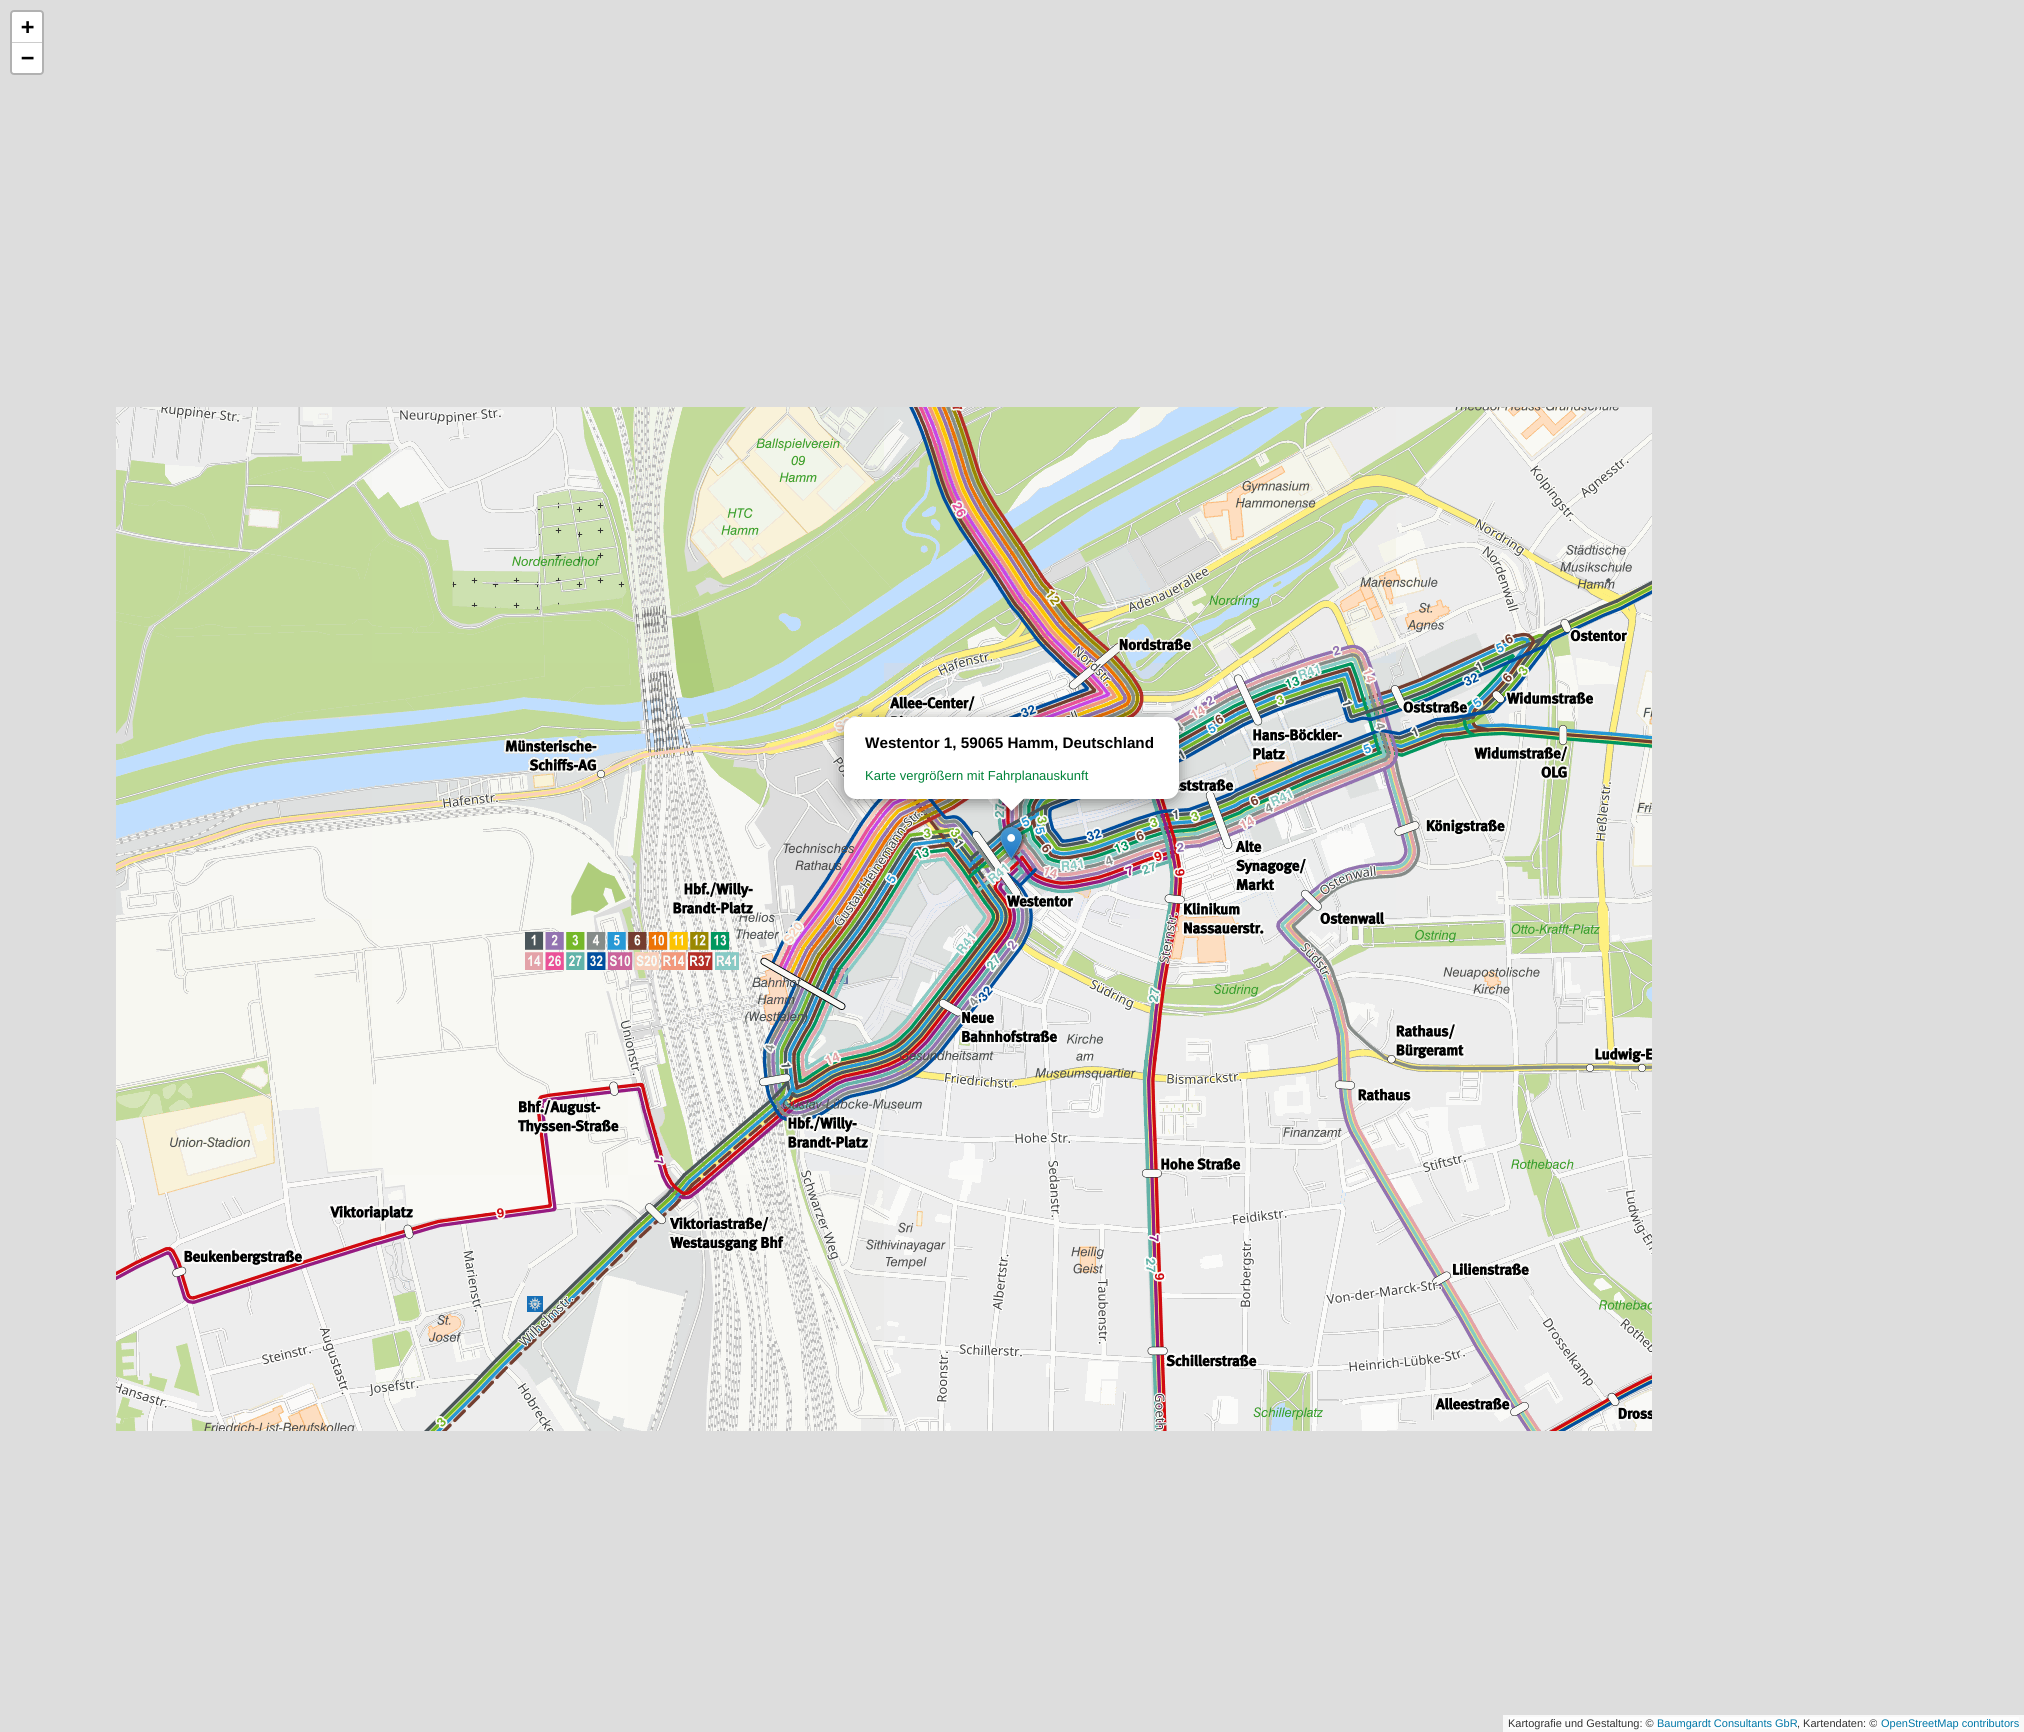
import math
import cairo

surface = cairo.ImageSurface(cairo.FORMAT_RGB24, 2024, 1732)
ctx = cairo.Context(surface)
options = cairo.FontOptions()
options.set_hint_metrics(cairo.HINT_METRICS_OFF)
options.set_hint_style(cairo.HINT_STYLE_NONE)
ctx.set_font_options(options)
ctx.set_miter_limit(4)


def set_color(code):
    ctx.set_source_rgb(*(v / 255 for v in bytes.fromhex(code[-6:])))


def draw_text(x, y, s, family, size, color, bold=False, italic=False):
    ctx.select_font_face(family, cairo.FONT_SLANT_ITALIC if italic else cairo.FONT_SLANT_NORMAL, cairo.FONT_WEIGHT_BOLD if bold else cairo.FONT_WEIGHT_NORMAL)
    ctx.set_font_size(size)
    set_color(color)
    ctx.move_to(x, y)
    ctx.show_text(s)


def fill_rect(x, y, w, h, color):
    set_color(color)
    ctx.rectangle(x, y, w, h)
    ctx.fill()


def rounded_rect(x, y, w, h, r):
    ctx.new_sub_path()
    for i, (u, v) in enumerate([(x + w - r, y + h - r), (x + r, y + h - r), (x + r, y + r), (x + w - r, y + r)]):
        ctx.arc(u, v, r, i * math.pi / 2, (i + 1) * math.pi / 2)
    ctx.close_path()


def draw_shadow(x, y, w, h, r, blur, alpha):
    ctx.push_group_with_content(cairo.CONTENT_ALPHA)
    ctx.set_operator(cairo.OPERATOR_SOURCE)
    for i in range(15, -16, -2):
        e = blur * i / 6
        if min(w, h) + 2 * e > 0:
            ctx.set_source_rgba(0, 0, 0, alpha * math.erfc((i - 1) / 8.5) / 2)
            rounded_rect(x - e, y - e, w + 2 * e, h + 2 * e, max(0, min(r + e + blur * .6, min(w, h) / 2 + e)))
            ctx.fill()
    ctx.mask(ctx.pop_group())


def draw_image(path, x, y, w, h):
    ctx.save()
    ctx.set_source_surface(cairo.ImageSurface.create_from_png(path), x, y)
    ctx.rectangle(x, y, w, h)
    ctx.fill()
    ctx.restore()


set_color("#dddddd")
ctx.paint()
rounded_rect(11, 11, 32, 63, 3)
set_color("#b1b1b1")
ctx.stroke()
set_color("#ffffff")
ctx.new_path()
ctx.move_to(14, 12)
ctx.line_to(40, 12)
ctx.curve_to(41, 12, 42, 13, 42, 14)
ctx.line_to(42, 43)
ctx.line_to(12, 43)
ctx.line_to(12, 14)
ctx.curve_to(12, 13, 13, 12, 14, 12)
ctx.close_path()
ctx.fill()
fill_rect(12, 42, 30, 1, "#cccccc")
draw_text(21, 34, "+", "DejaVu Sans Mono", 22, "#000000", bold=True)
set_color("#ffffff")
ctx.new_path()
ctx.move_to(12, 43)
ctx.line_to(42, 43)
ctx.line_to(42, 71)
ctx.curve_to(42, 72, 41, 73, 40, 73)
ctx.line_to(14, 73)
ctx.curve_to(13, 73, 12, 72, 12, 71)
ctx.close_path()
ctx.fill()
draw_text(21, 65, "−", "DejaVu Sans Mono", 22, "#000000", bold=True)
fill_rect(1503, 1715, 521, 17, "#f8f8f8")
fill_rect(1508, 1717, 511, 12, "#fdfdfd")
draw_text(1508, 1727, "Kartografie und Gestaltung: ©", "Liberation Sans", 11, "#333333")
draw_text(1657, 1727, "Baumgardt Consultants GbR", "Liberation Sans", 11, "#0078a8")
draw_text(1797, 1727, ", Kartendaten: ©", "Liberation Sans", 11, "#333333")
draw_text(1881, 1727, "OpenStreetMap contributors", "Liberation Sans", 11, "#0078a8")
draw_image("assets/img1.png", 116, 407, 256, 256)
draw_image("assets/img2.png", 372, 407, 256, 256)
draw_image("assets/img3.png", 628, 407, 256, 256)
draw_image("assets/img4.png", 884, 407, 256, 256)
draw_image("assets/img5.png", 1140, 407, 256, 256)
draw_image("assets/img6.png", 1396, 407, 256, 256)
draw_image("assets/img7.png", 116, 663, 256, 256)
draw_image("assets/img8.png", 372, 663, 256, 256)
draw_image("assets/img9.png", 628, 663, 256, 256)
draw_image("assets/img10.png", 884, 663, 256, 256)
draw_image("assets/img11.png", 1140, 663, 256, 256)
draw_image("assets/img12.png", 1396, 663, 256, 256)
draw_image("assets/img13.png", 116, 919, 256, 256)
draw_image("assets/img14.png", 372, 919, 256, 256)
draw_image("assets/img15.png", 628, 919, 256, 256)
draw_image("assets/img16.png", 884, 919, 256, 256)
draw_image("assets/img17.png", 1140, 919, 256, 256)
draw_image("assets/img18.png", 1396, 919, 256, 256)
draw_image("assets/img19.png", 116, 1175, 256, 256)
draw_image("assets/img20.png", 372, 1175, 256, 256)
draw_image("assets/img21.png", 628, 1175, 256, 256)
draw_image("assets/img22.png", 884, 1175, 256, 256)
draw_image("assets/img23.png", 1140, 1175, 256, 256)
draw_image("assets/img24.png", 1396, 1175, 256, 256)
set_color("#000000")
draw_shadow(844, 720, 335, 82, 12, 7, 0.4)
set_color("#ffffff")
rounded_rect(844, 717, 335, 82, 12)
ctx.fill()
draw_text(865, 748, "Westentor 1, 59065 Hamm, Deutschland", "Liberation Sans", 15.25, "#000000", bold=True)
draw_text(865, 780, "Karte vergrößern mit Fahrplanauskunft", "Liberation Sans", 13, "#008339")
draw_image("assets/img25.png", 998, 825, 28, 38)
ctx.save()
ctx.rectangle(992, 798, 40, 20)
ctx.clip()
set_color("#000000")
draw_shadow(1002, 791, 19, 19, 0, 7, 0.4)
ctx.restore()
ctx.save()
ctx.rectangle(992, 798, 40, 20)
ctx.clip()
set_color("#ffffff")
ctx.new_path()
ctx.move_to(1011.5, 784)
ctx.line_to(1025, 797.5)
ctx.line_to(1011.5, 811)
ctx.line_to(998, 797.5)
ctx.close_path()
ctx.fill()
ctx.restore()
surface.write_to_png("output.png")
